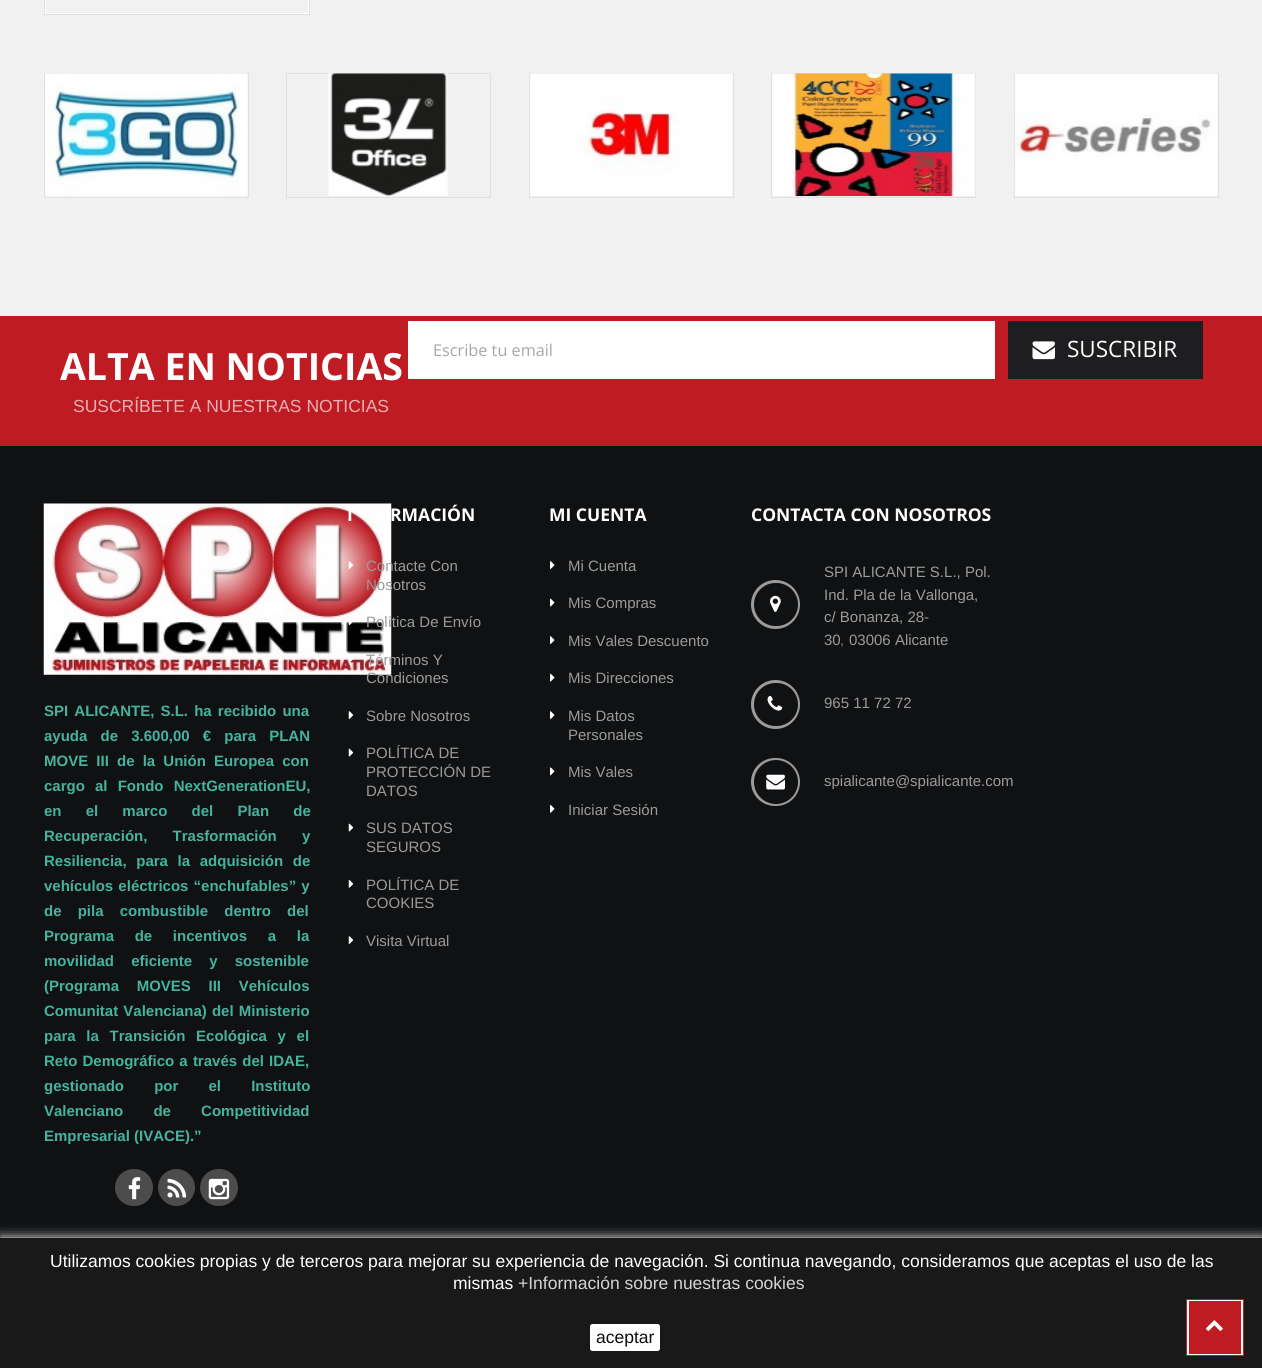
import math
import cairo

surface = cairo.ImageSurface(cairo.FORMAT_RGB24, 1262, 1368)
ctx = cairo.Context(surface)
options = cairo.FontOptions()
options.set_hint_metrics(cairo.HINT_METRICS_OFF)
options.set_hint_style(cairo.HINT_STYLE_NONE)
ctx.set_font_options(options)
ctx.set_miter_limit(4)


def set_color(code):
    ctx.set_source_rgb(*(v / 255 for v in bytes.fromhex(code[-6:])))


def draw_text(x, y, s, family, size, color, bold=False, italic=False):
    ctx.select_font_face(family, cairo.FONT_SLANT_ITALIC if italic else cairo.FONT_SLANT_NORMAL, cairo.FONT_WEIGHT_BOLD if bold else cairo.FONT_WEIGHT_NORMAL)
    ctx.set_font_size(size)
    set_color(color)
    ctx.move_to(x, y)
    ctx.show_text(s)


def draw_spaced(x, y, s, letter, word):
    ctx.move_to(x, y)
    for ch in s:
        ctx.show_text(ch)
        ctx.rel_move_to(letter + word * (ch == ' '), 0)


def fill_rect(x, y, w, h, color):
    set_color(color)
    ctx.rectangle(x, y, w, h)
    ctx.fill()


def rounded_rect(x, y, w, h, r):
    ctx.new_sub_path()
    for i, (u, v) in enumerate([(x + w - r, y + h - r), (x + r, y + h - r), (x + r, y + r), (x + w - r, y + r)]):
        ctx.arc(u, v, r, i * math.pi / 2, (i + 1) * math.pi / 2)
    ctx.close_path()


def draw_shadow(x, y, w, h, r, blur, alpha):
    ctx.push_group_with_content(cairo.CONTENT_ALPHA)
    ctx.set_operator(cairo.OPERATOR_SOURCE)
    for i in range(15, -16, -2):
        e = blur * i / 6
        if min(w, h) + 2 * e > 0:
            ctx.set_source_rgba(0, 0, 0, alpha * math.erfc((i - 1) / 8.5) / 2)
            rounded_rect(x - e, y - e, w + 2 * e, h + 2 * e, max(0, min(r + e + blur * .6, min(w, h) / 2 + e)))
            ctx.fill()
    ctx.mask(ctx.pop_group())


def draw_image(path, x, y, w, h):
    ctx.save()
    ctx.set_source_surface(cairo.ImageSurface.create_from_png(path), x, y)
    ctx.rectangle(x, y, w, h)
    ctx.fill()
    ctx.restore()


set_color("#f1f1f1")
ctx.paint()
ctx.rectangle(45.5, -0.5, 263, 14)
set_color("#ffffff")
ctx.set_line_width(1)
ctx.stroke()
ctx.rectangle(44.5, -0.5, 265, 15)
set_color("#e2dfdf")
ctx.stroke()
ctx.rectangle(44.5, 73.5, 204, 124)
set_color("#e0e0e0")
ctx.stroke()
draw_image("assets/img1.png", 45, 73, 203, 124)
ctx.rectangle(286.5, 73.5, 204, 124)
ctx.stroke()
draw_image("assets/img2.png", 328, 73, 120, 123)
ctx.rectangle(529.5, 73.5, 204, 124)
ctx.stroke()
draw_image("assets/img3.png", 529, 73, 204, 123)
ctx.rectangle(771.5, 73.5, 204, 124)
ctx.stroke()
draw_image("assets/img4.png", 772, 73, 204, 123)
ctx.rectangle(1014.5, 73.5, 204, 124)
ctx.stroke()
draw_image("assets/img5.png", 1014, 73, 204, 123)
fill_rect(0, 316, 1262, 130, "#bf1b23")
fill_rect(408, 321, 587, 58, "#ffffff")
draw_text(433, 356, "Escribe tu email", "Open Sans", 16.25, "#a7a7a7")
fill_rect(1008, 321, 195, 58, "#1e1e21")
draw_image("assets/img6.png", 1032, 341, 23, 19)
draw_text(1067, 357, "SUSCRIBIR", "Open Sans", 22.5, "#ffffff")
draw_text(60, 380, "ALTA EN NOTICIAS", "Open Sans", 37.5, "#ffffff", bold=True)
draw_text(73, 412, "SUSCRÍBETE A NUESTRAS NOTICIAS", "Liberation Sans", 17.5, "#e9afb2")
fill_rect(0, 446, 1262, 792, "#0f1112")
draw_image("assets/img20.png", 43, 503, 349, 172)
draw_text(347, 521, "I", "Open Sans", 17.5, "#ffffff", bold=True)
draw_text(390, 521, "RMACIÓN", "Open Sans", 17.5, "#ffffff", bold=True)
draw_image("assets/img7.png", 348, 561, 6, 8)
draw_text(366, 571, "Contacte Con", "Liberation Sans", 15, "#9c9b9b")
draw_text(366, 590, "Nosotros", "Liberation Sans", 15, "#9c9b9b")
draw_image("assets/img8.png", 348, 619, 5, 7)
draw_text(366, 627, "Política De Envío", "Liberation Sans", 15, "#9c9b9b")
draw_image("assets/img9.png", 348, 655, 5, 8)
draw_text(366, 665, "Términos Y", "Liberation Sans", 15, "#9c9b9b")
draw_text(366, 683, "Condiciones", "Liberation Sans", 15, "#9c9b9b")
draw_image("assets/img10.png", 348, 711, 6, 8)
draw_text(366, 721, "Sobre Nosotros", "Liberation Sans", 15, "#9c9b9b")
draw_image("assets/img11.png", 348, 748, 6, 9)
draw_text(366, 758, "POLÍTICA DE", "Liberation Sans", 15, "#9c9b9b")
draw_text(366, 777, "PROTECCIÓN DE", "Liberation Sans", 15, "#9c9b9b")
draw_text(366, 796, "DATOS", "Liberation Sans", 15, "#9c9b9b")
draw_image("assets/img11.png", 348, 823, 6, 9)
draw_text(366, 833, "SUS DATOS", "Liberation Sans", 15, "#9c9b9b")
draw_text(366, 852, "SEGUROS", "Liberation Sans", 15, "#9c9b9b")
draw_image("assets/img12.png", 348, 880, 6, 8)
draw_text(366, 890, "POLÍTICA DE", "Liberation Sans", 15, "#9c9b9b")
draw_text(366, 908, "COOKIES", "Liberation Sans", 15, "#9c9b9b")
draw_image("assets/img10.png", 348, 936, 6, 8)
draw_text(366, 946, "Visita Virtual", "Liberation Sans", 15, "#9c9b9b")
draw_text(549, 521, "MI CUENTA", "Open Sans", 17.5, "#ffffff", bold=True)
draw_image("assets/img13.png", 550, 561, 5, 8)
draw_text(568, 571, "Mi Cuenta", "Liberation Sans", 15, "#9c9b9b")
draw_image("assets/img14.png", 550, 598, 5, 9)
draw_text(568, 608, "Mis Compras", "Liberation Sans", 15, "#9c9b9b")
draw_image("assets/img13.png", 550, 636, 5, 8)
draw_text(568, 646, "Mis Vales Descuento", "Liberation Sans", 15, "#9c9b9b")
draw_image("assets/img14.png", 550, 673, 5, 9)
draw_text(568, 683, "Mis Direcciones", "Liberation Sans", 15, "#9c9b9b")
draw_image("assets/img13.png", 550, 711, 5, 8)
draw_text(568, 721, "Mis Datos", "Liberation Sans", 15, "#9c9b9b")
draw_text(568, 740, "Personales", "Liberation Sans", 15, "#9c9b9b")
draw_image("assets/img15.png", 550, 767, 5, 9)
draw_text(568, 777, "Mis Vales", "Liberation Sans", 15, "#9c9b9b")
draw_image("assets/img16.png", 550, 805, 5, 8)
draw_text(568, 815, "Iniciar Sesión", "Liberation Sans", 15, "#9c9b9b")
draw_text(751, 521, "CONTACTA CON NOSOTROS", "Open Sans", 17.5, "#ffffff", bold=True)
draw_text(824, 577, "SPI ALICANTE S.L., Pol.", "Liberation Sans", 15, "#9c9b9b")
ctx.new_path()
ctx.arc(775.5, 604.5, 24.5, 0, 2 * math.pi)
ctx.fill()
set_color("#0f1112")
rounded_rect(754, 583, 44, 43, 21.5)
ctx.fill()
draw_image("assets/img17.png", 770, 595, 11, 17)
draw_text(824, 600, "Ind. Pla de la Vallonga,", "Liberation Sans", 15, "#9c9b9b")
draw_text(824, 622, "c/ Bonanza, 28-", "Liberation Sans", 15, "#9c9b9b")
draw_text(824, 645, "30", "Liberation Sans", 15, "#9c9b9b")
draw_text(840, 645, ",", "Liberation Sans", 15, "#777777")
draw_text(849, 645, "03006 Alicante", "Liberation Sans", 15, "#9c9b9b")
ctx.new_path()
ctx.arc(775.5, 704.5, 24.5, 0, 2 * math.pi)
ctx.fill()
set_color("#0f1112")
rounded_rect(754, 683, 44, 43, 21.5)
ctx.fill()
draw_image("assets/img18.png", 767, 695, 16, 16)
draw_text(824, 708, "965 11 72 72", "Liberation Sans", 15, "#9c9b9b")
rounded_rect(751, 758, 49, 48, 24)
ctx.fill()
set_color("#0f1112")
ctx.arc(776, 782, 22, 0, 2 * math.pi)
ctx.fill()
draw_image("assets/img19.png", 766, 774, 19, 16)
draw_text(824, 786, "spialicante@spialicante.com", "Liberation Sans", 15, "#9c9b9b")
ctx.select_font_face("Liberation Sans", cairo.FONT_SLANT_NORMAL, cairo.FONT_WEIGHT_BOLD)
set_color("#45b39d")
draw_spaced(44, 716, "SPI ALICANTE, S.L. ha recibido una", 0, 2)
draw_spaced(44, 741, "ayuda de 3.600,00 € para PLAN", 0, 9)
draw_spaced(44, 766, "MOVE III de la Unión Europea con", 0, 4)
draw_spaced(44, 791, "cargo al Fondo NextGenerationEU,", 0, 6)
draw_spaced(44, 816, "en el marco del Plan de", 0, 20)
draw_spaced(44, 841, "Recuperación, Trasformación y", 0, 21)
draw_spaced(44, 866, "Resiliencia, para la adquisición de", 0, 5.5)
draw_spaced(44, 891, "vehículos eléctricos “enchufables” y", 0, 1)
draw_spaced(44, 916, "de pila combustible dentro del", 0, 12)
draw_spaced(44, 941, "Programa de incentivos a la", 0, 16.5)
draw_spaced(44, 966, "movilidad eficiente y sostenible", 0, 13)
draw_spaced(44, 991, "(Programa MOVES III Vehículos", 0, 13.5)
draw_spaced(44, 1016, "Comunitat Valenciana) del Ministerio", 0, 1)
draw_spaced(44, 1041, "para la Transición Ecológica y el", 0, 6.5)
draw_spaced(44, 1066, "Reto Demográfico a través del IDAE,", 0, 1)
draw_spaced(44, 1091, "gestionado por el Instituto", 0, 26)
draw_spaced(44, 1116, "Valenciano de Competitividad", 0, 26)
draw_text(44, 1141, "Empresarial (IVACE).”", "Liberation Sans", 15, "#45b39d", bold=True)
set_color("#4c4c4c")
rounded_rect(115, 1169, 38, 37, 18.5)
ctx.fill()
draw_image("assets/img21.png", 128, 1177, 13, 23)
ctx.arc(176.5, 1187.5, 18.5, 0, 2 * math.pi)
ctx.fill()
draw_image("assets/img22.png", 167, 1178, 20, 20)
rounded_rect(200, 1169, 38, 37, 18.5)
ctx.fill()
draw_image("assets/img23.png", 208, 1178, 22, 22)
set_color("#ffffff")
draw_shadow(0, 1238, 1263, 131, 0, 6, 1)
fill_rect(0, 1238, 1262, 130, "#191919")
draw_text(50, 1267, "Utilizamos cookies propias y de terceros para mejorar su experiencia de navegación. Si continua navegando, consideramos que aceptas el uso de las", "Liberation Sans", 17.5, "#ffffff")
draw_text(453, 1289, "mismas", "Liberation Sans", 17.5, "#ffffff")
draw_text(518, 1289, "+Información sobre nuestras cookies", "Liberation Sans", 17.5, "#d4d4d4")
set_color("#ffffff")
rounded_rect(590, 1324, 70, 27, 2.5)
ctx.fill()
draw_text(596, 1343, "aceptar", "Liberation Sans", 17.5, "#0d0d0d")
set_color("#ffffff")
ctx.rectangle(1186.5, 1299.5, 57, 56)
ctx.fill_preserve()
set_color("#bf1b23")
ctx.stroke()
fill_rect(1189, 1301, 52, 53, "#bf1b23")
draw_image("assets/img24.png", 1206, 1320, 17, 11)
surface.write_to_png("output.png")
